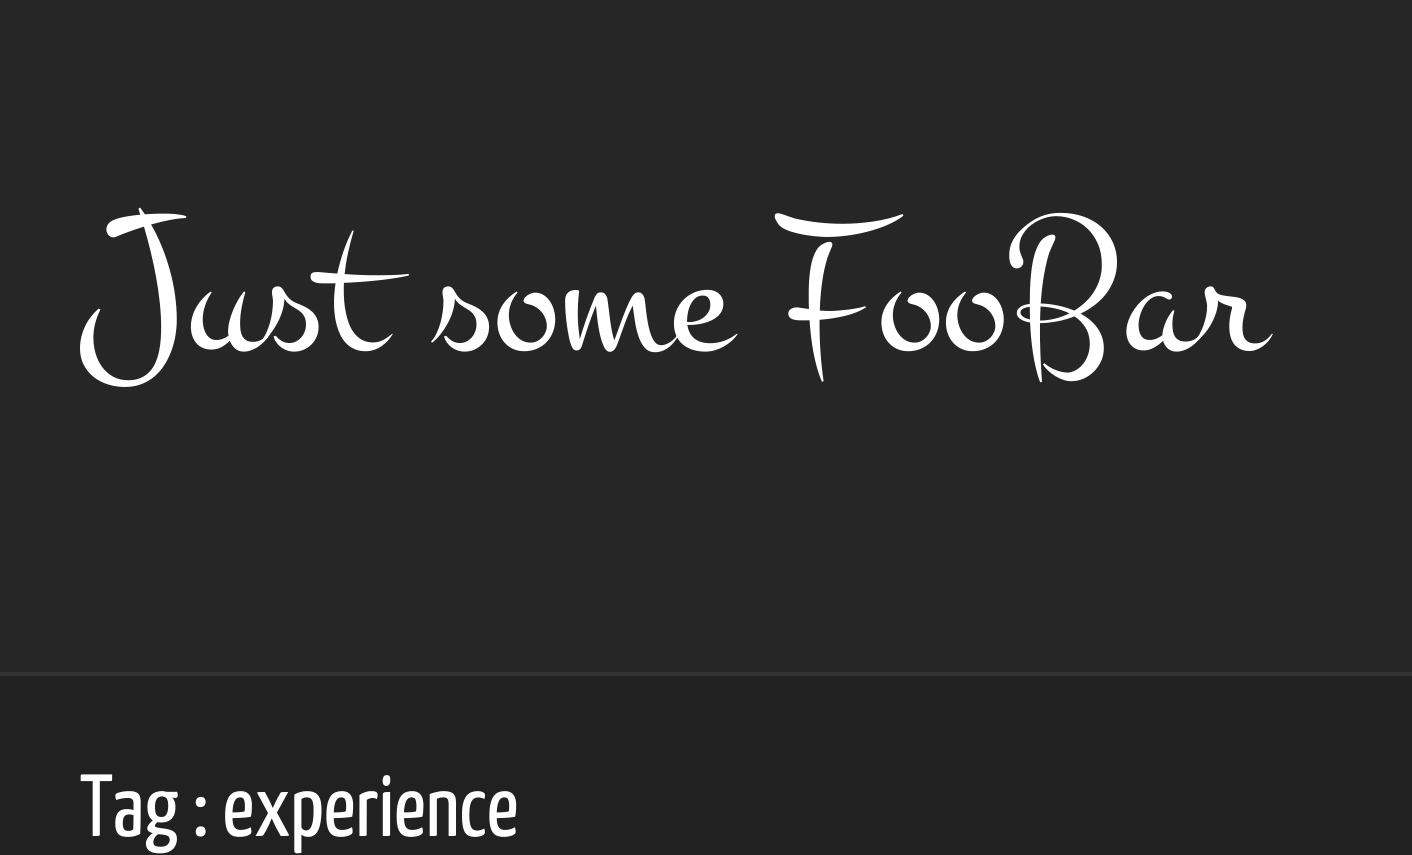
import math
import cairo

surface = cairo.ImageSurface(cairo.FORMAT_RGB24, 1412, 855)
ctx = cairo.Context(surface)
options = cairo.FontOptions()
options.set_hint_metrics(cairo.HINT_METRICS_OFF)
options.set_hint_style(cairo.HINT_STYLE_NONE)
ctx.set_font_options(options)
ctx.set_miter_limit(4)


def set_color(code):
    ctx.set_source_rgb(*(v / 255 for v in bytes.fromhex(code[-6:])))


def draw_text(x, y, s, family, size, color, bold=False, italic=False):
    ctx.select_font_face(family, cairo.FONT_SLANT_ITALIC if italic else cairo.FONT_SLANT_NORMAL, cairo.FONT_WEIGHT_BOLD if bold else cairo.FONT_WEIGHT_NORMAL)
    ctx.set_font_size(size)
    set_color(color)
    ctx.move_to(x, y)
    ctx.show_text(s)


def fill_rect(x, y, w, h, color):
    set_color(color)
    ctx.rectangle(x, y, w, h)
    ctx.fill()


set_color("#262626")
ctx.paint()
fill_rect(0, 672, 1412, 4, "#333333")
draw_text(80, 348, "Just some FooBar", "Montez", 200, "#ffffff")
fill_rect(0, 676, 1412, 179, "#212121")
draw_text(80, 836, "Tag : experience", "Yanone Kaffeesatz ExtraLight", 88, "#ffffff")
surface.write_to_png("output.png")
